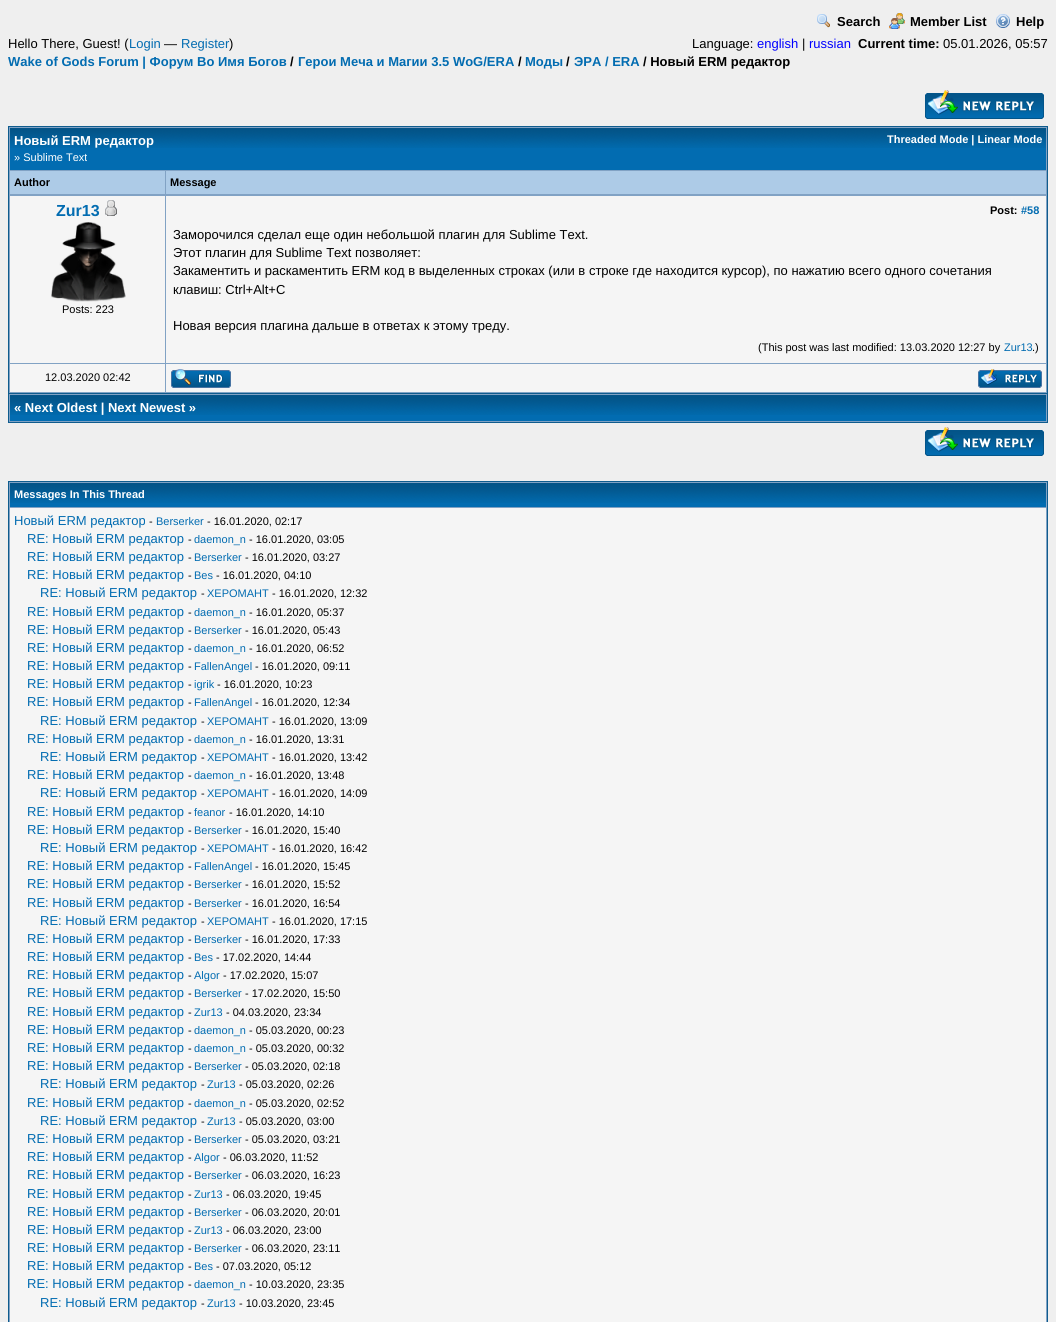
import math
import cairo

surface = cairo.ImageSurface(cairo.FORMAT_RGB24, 1056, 1322)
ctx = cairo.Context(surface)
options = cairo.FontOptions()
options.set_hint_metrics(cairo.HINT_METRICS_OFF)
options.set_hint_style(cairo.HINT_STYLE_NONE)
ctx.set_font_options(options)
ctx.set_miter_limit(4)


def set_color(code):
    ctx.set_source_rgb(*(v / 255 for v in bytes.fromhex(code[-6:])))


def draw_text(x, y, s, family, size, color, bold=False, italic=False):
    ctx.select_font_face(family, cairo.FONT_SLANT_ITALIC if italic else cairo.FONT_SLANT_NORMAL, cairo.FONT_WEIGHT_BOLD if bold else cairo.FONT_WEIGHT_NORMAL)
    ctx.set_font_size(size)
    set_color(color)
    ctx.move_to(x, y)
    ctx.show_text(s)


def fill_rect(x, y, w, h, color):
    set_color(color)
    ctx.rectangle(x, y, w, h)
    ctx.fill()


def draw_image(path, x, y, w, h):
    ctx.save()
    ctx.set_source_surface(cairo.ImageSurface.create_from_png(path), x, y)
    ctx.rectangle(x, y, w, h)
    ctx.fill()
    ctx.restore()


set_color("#efefef")
ctx.paint()
draw_image("assets/img1.png", 817, 14, 13, 14)
draw_text(837, 26, "Search", "Liberation Sans", 13, "#000000", bold=True)
draw_image("assets/img2.png", 889, 13, 16, 16)
draw_text(910, 26, "Member List", "Liberation Sans", 13, "#000000", bold=True)
draw_image("assets/img3.png", 996, 14, 14, 14)
draw_text(1016, 26, "Help", "Liberation Sans", 13, "#000000", bold=True)
draw_text(8, 48, "Hello There, Guest! (", "Liberation Sans", 13, "#000000")
draw_text(129, 48, "Login", "Liberation Sans", 13, "#026cb1")
draw_text(164, 48, "—", "Liberation Sans", 13, "#000000")
draw_text(181, 48, "Register", "Liberation Sans", 13, "#026cb1")
draw_text(229, 48, ")", "Liberation Sans", 13, "#000000")
draw_text(692, 48, "Language:", "Liberation Sans", 13, "#000000")
draw_text(757, 48, "english", "Liberation Sans", 13, "#0000ff")
draw_text(802, 48, "|", "Liberation Sans", 13, "#000000")
draw_text(809, 48, "russian", "Liberation Sans", 13, "#0000ff")
draw_text(858, 48, "Current time:", "Liberation Sans", 13, "#000000", bold=True)
draw_text(943, 48, "05.01.2026, 05:57", "Liberation Sans", 13, "#000000")
draw_text(8, 66, "Wake of Gods Forum | Форум Во Имя Богов", "Liberation Sans", 13, "#026cb1", bold=True)
draw_text(290, 66, "/", "Liberation Sans", 13, "#000000", bold=True)
draw_text(298, 66, "Герои Меча и Магии 3.5 WoG/ERA", "Liberation Sans", 13, "#026cb1", bold=True)
draw_text(518, 66, "/", "Liberation Sans", 13, "#000000", bold=True)
draw_text(525, 66, "Моды", "Liberation Sans", 13, "#026cb1", bold=True)
draw_text(566, 66, "/", "Liberation Sans", 13, "#000000", bold=True)
draw_text(574, 66, "ЭРА / ERA", "Liberation Sans", 13, "#026cb1", bold=True)
draw_text(643, 66, "/ Новый ERM редактор", "Liberation Sans", 13, "#000000", bold=True)
draw_image("assets/img4.png", 925, 90, 119, 29)
fill_rect(9, 127, 1038, 266, "#81a2c4")
fill_rect(8, 126, 1040, 1, "#0f5c8e")
fill_rect(1047, 126, 1, 297, "#0f5c8e")
fill_rect(8, 126, 1, 69, "#0f5c8e")
fill_rect(10, 148, 1036, 22, "#026cb1")
draw_image("assets/img5.png", 10, 128, 1036, 20)
draw_text(14, 145, "Новый ERM редактор", "Liberation Sans", 13, "#ffffff", bold=True)
draw_text(14, 161, "» Sublime Text", "Liberation Sans", 11, "#ffffff")
draw_text(887, 143, "Threaded Mode | Linear Mode", "Liberation Sans", 11, "#ffffff", bold=True)
fill_rect(10, 171, 155, 23, "#adcbe7")
draw_text(14, 186, "Author", "Liberation Sans", 11, "#000000", bold=True)
fill_rect(166, 171, 880, 23, "#adcbe7")
draw_text(170, 186, "Message", "Liberation Sans", 11, "#000000", bold=True)
fill_rect(8, 393, 1040, 1, "#0f5c8e")
fill_rect(8, 195, 1, 199, "#0f5c8e")
fill_rect(10, 196, 155, 167, "#f5f5f5")
draw_text(56, 216, "Zur13", "Liberation Sans", 16, "#026cb1", bold=True)
draw_image("assets/img6.png", 105, 200, 12, 16)
draw_image("assets/img7.png", 51, 222, 75, 80)
draw_text(62, 313, "Posts: 223", "Liberation Sans", 11, "#000000")
fill_rect(166, 196, 880, 167, "#f5f5f5")
draw_text(990, 214, "Post:", "Liberation Sans", 11, "#000000", bold=True)
draw_text(1021, 214, "#58", "Liberation Sans", 11, "#026cb1", bold=True)
draw_text(173, 239, "Заморочился сделал еще один небольшой плагин для Sublime Text.", "Liberation Sans", 13, "#000000")
draw_text(173, 257, "Этот плагин для Sublime Text позволяет:", "Liberation Sans", 13, "#000000")
draw_text(173, 275, "Закаментить и раскаментить ERM код в выделенных строках (или в строке где находится курсор), по нажатию всего одного сочетания", "Liberation Sans", 13, "#000000")
draw_text(173, 294, "клавиш: Ctrl+Alt+C", "Liberation Sans", 13, "#000000")
draw_text(173, 330, "Новая версия плагина дальше в ответах к этому треду.", "Liberation Sans", 13, "#000000")
draw_text(758, 351, "(This post was last modified: 13.03.2020 12:27 by", "Liberation Sans", 11, "#000000")
draw_text(1004, 351, "Zur13", "Liberation Sans", 11, "#026cb1")
draw_text(1032, 351, ".)", "Liberation Sans", 11, "#000000")
fill_rect(10, 364, 155, 28, "#f5f5f5")
draw_text(45, 381, "12.03.2020 02:42", "Liberation Sans", 11, "#000000")
fill_rect(166, 364, 880, 28, "#f5f5f5")
draw_image("assets/img8.png", 171, 369, 60, 19)
draw_image("assets/img9.png", 978, 369, 64, 19)
fill_rect(9, 394, 1038, 28, "#81a2c4")
fill_rect(8, 422, 1040, 1, "#0f5c8e")
fill_rect(8, 394, 1, 29, "#0f5c8e")
fill_rect(10, 415, 1036, 6, "#026cb1")
draw_image("assets/img5.png", 10, 395, 1036, 20)
draw_text(14, 412, "« Next Oldest | Next Newest »", "Liberation Sans", 13, "#ffffff", bold=True)
draw_image("assets/img4.png", 925, 427, 119, 29)
set_color("#81a2c4")
ctx.rectangle(8.5, 481.5, 1039, 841)
ctx.fill_preserve()
set_color("#0f5c8e")
ctx.set_line_width(1)
ctx.stroke()
fill_rect(10, 503, 1036, 4, "#026cb1")
draw_image("assets/img5.png", 10, 483, 1036, 20)
draw_text(14, 498, "Messages In This Thread", "Liberation Sans", 11, "#ffffff", bold=True)
fill_rect(10, 508, 1036, 814, "#f5f5f5")
draw_text(14, 525, "Новый ERM редактор", "Liberation Sans", 13, "#026cb1")
draw_text(149, 525, "-", "Liberation Sans", 11, "#000000")
draw_text(156, 525, "Berserker", "Liberation Sans", 11, "#026cb1")
draw_text(207, 525, "- 16.01.2020, 02:17", "Liberation Sans", 11, "#000000")
draw_text(27, 543, "RE: Новый ERM редактор", "Liberation Sans", 13, "#026cb1")
draw_text(188, 543, "-", "Liberation Sans", 11, "#000000")
draw_text(194, 543, "daemon_n", "Liberation Sans", 11, "#026cb1")
draw_text(249, 543, "- 16.01.2020, 03:05", "Liberation Sans", 11, "#000000")
draw_text(27, 561, "RE: Новый ERM редактор", "Liberation Sans", 13, "#026cb1")
draw_text(188, 561, "-", "Liberation Sans", 11, "#000000")
draw_text(194, 561, "Berserker", "Liberation Sans", 11, "#026cb1")
draw_text(245, 561, "- 16.01.2020, 03:27", "Liberation Sans", 11, "#000000")
draw_text(27, 579, "RE: Новый ERM редактор", "Liberation Sans", 13, "#026cb1")
draw_text(188, 579, "-", "Liberation Sans", 11, "#000000")
draw_text(194, 579, "Bes", "Liberation Sans", 11, "#026cb1")
draw_text(216, 579, "- 16.01.2020, 04:10", "Liberation Sans", 11, "#000000")
draw_text(40, 597, "RE: Новый ERM редактор", "Liberation Sans", 13, "#026cb1")
draw_text(201, 597, "-", "Liberation Sans", 11, "#000000")
draw_text(207, 597, "XEPOMAHT", "Liberation Sans", 11, "#026cb1")
draw_text(272, 597, "- 16.01.2020, 12:32", "Liberation Sans", 11, "#000000")
draw_text(27, 616, "RE: Новый ERM редактор", "Liberation Sans", 13, "#026cb1")
draw_text(188, 616, "-", "Liberation Sans", 11, "#000000")
draw_text(194, 616, "daemon_n", "Liberation Sans", 11, "#026cb1")
draw_text(249, 616, "- 16.01.2020, 05:37", "Liberation Sans", 11, "#000000")
draw_text(27, 634, "RE: Новый ERM редактор", "Liberation Sans", 13, "#026cb1")
draw_text(188, 634, "-", "Liberation Sans", 11, "#000000")
draw_text(194, 634, "Berserker", "Liberation Sans", 11, "#026cb1")
draw_text(245, 634, "- 16.01.2020, 05:43", "Liberation Sans", 11, "#000000")
draw_text(27, 652, "RE: Новый ERM редактор", "Liberation Sans", 13, "#026cb1")
draw_text(188, 652, "-", "Liberation Sans", 11, "#000000")
draw_text(194, 652, "daemon_n", "Liberation Sans", 11, "#026cb1")
draw_text(249, 652, "- 16.01.2020, 06:52", "Liberation Sans", 11, "#000000")
draw_text(27, 670, "RE: Новый ERM редактор", "Liberation Sans", 13, "#026cb1")
draw_text(188, 670, "-", "Liberation Sans", 11, "#000000")
draw_text(194, 670, "FallenAngel", "Liberation Sans", 11, "#026cb1")
draw_text(255, 670, "- 16.01.2020, 09:11", "Liberation Sans", 11, "#000000")
draw_text(27, 688, "RE: Новый ERM редактор", "Liberation Sans", 13, "#026cb1")
draw_text(188, 688, "-", "Liberation Sans", 11, "#000000")
draw_text(194, 688, "igrik", "Liberation Sans", 11, "#026cb1")
draw_text(217, 688, "- 16.01.2020, 10:23", "Liberation Sans", 11, "#000000")
draw_text(27, 706, "RE: Новый ERM редактор", "Liberation Sans", 13, "#026cb1")
draw_text(188, 706, "-", "Liberation Sans", 11, "#000000")
draw_text(194, 706, "FallenAngel", "Liberation Sans", 11, "#026cb1")
draw_text(255, 706, "- 16.01.2020, 12:34", "Liberation Sans", 11, "#000000")
draw_text(40, 725, "RE: Новый ERM редактор", "Liberation Sans", 13, "#026cb1")
draw_text(201, 725, "-", "Liberation Sans", 11, "#000000")
draw_text(207, 725, "XEPOMAHT", "Liberation Sans", 11, "#026cb1")
draw_text(272, 725, "- 16.01.2020, 13:09", "Liberation Sans", 11, "#000000")
draw_text(27, 743, "RE: Новый ERM редактор", "Liberation Sans", 13, "#026cb1")
draw_text(188, 743, "-", "Liberation Sans", 11, "#000000")
draw_text(194, 743, "daemon_n", "Liberation Sans", 11, "#026cb1")
draw_text(249, 743, "- 16.01.2020, 13:31", "Liberation Sans", 11, "#000000")
draw_text(40, 761, "RE: Новый ERM редактор", "Liberation Sans", 13, "#026cb1")
draw_text(201, 761, "-", "Liberation Sans", 11, "#000000")
draw_text(207, 761, "XEPOMAHT", "Liberation Sans", 11, "#026cb1")
draw_text(272, 761, "- 16.01.2020, 13:42", "Liberation Sans", 11, "#000000")
draw_text(27, 779, "RE: Новый ERM редактор", "Liberation Sans", 13, "#026cb1")
draw_text(188, 779, "-", "Liberation Sans", 11, "#000000")
draw_text(194, 779, "daemon_n", "Liberation Sans", 11, "#026cb1")
draw_text(249, 779, "- 16.01.2020, 13:48", "Liberation Sans", 11, "#000000")
draw_text(40, 797, "RE: Новый ERM редактор", "Liberation Sans", 13, "#026cb1")
draw_text(201, 797, "-", "Liberation Sans", 11, "#000000")
draw_text(207, 797, "XEPOMAHT", "Liberation Sans", 11, "#026cb1")
draw_text(272, 797, "- 16.01.2020, 14:09", "Liberation Sans", 11, "#000000")
draw_text(27, 816, "RE: Новый ERM редактор", "Liberation Sans", 13, "#026cb1")
draw_text(188, 816, "-", "Liberation Sans", 11, "#000000")
draw_text(194, 816, "feanor", "Liberation Sans", 11, "#026cb1")
draw_text(229, 816, "- 16.01.2020, 14:10", "Liberation Sans", 11, "#000000")
draw_text(27, 834, "RE: Новый ERM редактор", "Liberation Sans", 13, "#026cb1")
draw_text(188, 834, "-", "Liberation Sans", 11, "#000000")
draw_text(194, 834, "Berserker", "Liberation Sans", 11, "#026cb1")
draw_text(245, 834, "- 16.01.2020, 15:40", "Liberation Sans", 11, "#000000")
draw_text(40, 852, "RE: Новый ERM редактор", "Liberation Sans", 13, "#026cb1")
draw_text(201, 852, "-", "Liberation Sans", 11, "#000000")
draw_text(207, 852, "XEPOMAHT", "Liberation Sans", 11, "#026cb1")
draw_text(272, 852, "- 16.01.2020, 16:42", "Liberation Sans", 11, "#000000")
draw_text(27, 870, "RE: Новый ERM редактор", "Liberation Sans", 13, "#026cb1")
draw_text(188, 870, "-", "Liberation Sans", 11, "#000000")
draw_text(194, 870, "FallenAngel", "Liberation Sans", 11, "#026cb1")
draw_text(255, 870, "- 16.01.2020, 15:45", "Liberation Sans", 11, "#000000")
draw_text(27, 888, "RE: Новый ERM редактор", "Liberation Sans", 13, "#026cb1")
draw_text(188, 888, "-", "Liberation Sans", 11, "#000000")
draw_text(194, 888, "Berserker", "Liberation Sans", 11, "#026cb1")
draw_text(245, 888, "- 16.01.2020, 15:52", "Liberation Sans", 11, "#000000")
draw_text(27, 907, "RE: Новый ERM редактор", "Liberation Sans", 13, "#026cb1")
draw_text(188, 907, "-", "Liberation Sans", 11, "#000000")
draw_text(194, 907, "Berserker", "Liberation Sans", 11, "#026cb1")
draw_text(245, 907, "- 16.01.2020, 16:54", "Liberation Sans", 11, "#000000")
draw_text(40, 925, "RE: Новый ERM редактор", "Liberation Sans", 13, "#026cb1")
draw_text(201, 925, "-", "Liberation Sans", 11, "#000000")
draw_text(207, 925, "XEPOMAHT", "Liberation Sans", 11, "#026cb1")
draw_text(272, 925, "- 16.01.2020, 17:15", "Liberation Sans", 11, "#000000")
draw_text(27, 943, "RE: Новый ERM редактор", "Liberation Sans", 13, "#026cb1")
draw_text(188, 943, "-", "Liberation Sans", 11, "#000000")
draw_text(194, 943, "Berserker", "Liberation Sans", 11, "#026cb1")
draw_text(245, 943, "- 16.01.2020, 17:33", "Liberation Sans", 11, "#000000")
draw_text(27, 961, "RE: Новый ERM редактор", "Liberation Sans", 13, "#026cb1")
draw_text(188, 961, "-", "Liberation Sans", 11, "#000000")
draw_text(194, 961, "Bes", "Liberation Sans", 11, "#026cb1")
draw_text(216, 961, "- 17.02.2020, 14:44", "Liberation Sans", 11, "#000000")
draw_text(27, 979, "RE: Новый ERM редактор", "Liberation Sans", 13, "#026cb1")
draw_text(188, 979, "-", "Liberation Sans", 11, "#000000")
draw_text(194, 979, "Algor", "Liberation Sans", 11, "#026cb1")
draw_text(223, 979, "- 17.02.2020, 15:07", "Liberation Sans", 11, "#000000")
draw_text(27, 997, "RE: Новый ERM редактор", "Liberation Sans", 13, "#026cb1")
draw_text(188, 997, "-", "Liberation Sans", 11, "#000000")
draw_text(194, 997, "Berserker", "Liberation Sans", 11, "#026cb1")
draw_text(245, 997, "- 17.02.2020, 15:50", "Liberation Sans", 11, "#000000")
draw_text(27, 1016, "RE: Новый ERM редактор", "Liberation Sans", 13, "#026cb1")
draw_text(188, 1016, "-", "Liberation Sans", 11, "#000000")
draw_text(194, 1016, "Zur13", "Liberation Sans", 11, "#026cb1")
draw_text(226, 1016, "- 04.03.2020, 23:34", "Liberation Sans", 11, "#000000")
draw_text(27, 1034, "RE: Новый ERM редактор", "Liberation Sans", 13, "#026cb1")
draw_text(188, 1034, "-", "Liberation Sans", 11, "#000000")
draw_text(194, 1034, "daemon_n", "Liberation Sans", 11, "#026cb1")
draw_text(249, 1034, "- 05.03.2020, 00:23", "Liberation Sans", 11, "#000000")
draw_text(27, 1052, "RE: Новый ERM редактор", "Liberation Sans", 13, "#026cb1")
draw_text(188, 1052, "-", "Liberation Sans", 11, "#000000")
draw_text(194, 1052, "daemon_n", "Liberation Sans", 11, "#026cb1")
draw_text(249, 1052, "- 05.03.2020, 00:32", "Liberation Sans", 11, "#000000")
draw_text(27, 1070, "RE: Новый ERM редактор", "Liberation Sans", 13, "#026cb1")
draw_text(188, 1070, "-", "Liberation Sans", 11, "#000000")
draw_text(194, 1070, "Berserker", "Liberation Sans", 11, "#026cb1")
draw_text(245, 1070, "- 05.03.2020, 02:18", "Liberation Sans", 11, "#000000")
draw_text(40, 1088, "RE: Новый ERM редактор", "Liberation Sans", 13, "#026cb1")
draw_text(201, 1088, "-", "Liberation Sans", 11, "#000000")
draw_text(207, 1088, "Zur13", "Liberation Sans", 11, "#026cb1")
draw_text(239, 1088, "- 05.03.2020, 02:26", "Liberation Sans", 11, "#000000")
draw_text(27, 1107, "RE: Новый ERM редактор", "Liberation Sans", 13, "#026cb1")
draw_text(188, 1107, "-", "Liberation Sans", 11, "#000000")
draw_text(194, 1107, "daemon_n", "Liberation Sans", 11, "#026cb1")
draw_text(249, 1107, "- 05.03.2020, 02:52", "Liberation Sans", 11, "#000000")
draw_text(40, 1125, "RE: Новый ERM редактор", "Liberation Sans", 13, "#026cb1")
draw_text(201, 1125, "-", "Liberation Sans", 11, "#000000")
draw_text(207, 1125, "Zur13", "Liberation Sans", 11, "#026cb1")
draw_text(239, 1125, "- 05.03.2020, 03:00", "Liberation Sans", 11, "#000000")
draw_text(27, 1143, "RE: Новый ERM редактор", "Liberation Sans", 13, "#026cb1")
draw_text(188, 1143, "-", "Liberation Sans", 11, "#000000")
draw_text(194, 1143, "Berserker", "Liberation Sans", 11, "#026cb1")
draw_text(245, 1143, "- 05.03.2020, 03:21", "Liberation Sans", 11, "#000000")
draw_text(27, 1161, "RE: Новый ERM редактор", "Liberation Sans", 13, "#026cb1")
draw_text(188, 1161, "-", "Liberation Sans", 11, "#000000")
draw_text(194, 1161, "Algor", "Liberation Sans", 11, "#026cb1")
draw_text(223, 1161, "- 06.03.2020, 11:52", "Liberation Sans", 11, "#000000")
draw_text(27, 1179, "RE: Новый ERM редактор", "Liberation Sans", 13, "#026cb1")
draw_text(188, 1179, "-", "Liberation Sans", 11, "#000000")
draw_text(194, 1179, "Berserker", "Liberation Sans", 11, "#026cb1")
draw_text(245, 1179, "- 06.03.2020, 16:23", "Liberation Sans", 11, "#000000")
draw_text(27, 1198, "RE: Новый ERM редактор", "Liberation Sans", 13, "#026cb1")
draw_text(188, 1198, "-", "Liberation Sans", 11, "#000000")
draw_text(194, 1198, "Zur13", "Liberation Sans", 11, "#026cb1")
draw_text(226, 1198, "- 06.03.2020, 19:45", "Liberation Sans", 11, "#000000")
draw_text(27, 1216, "RE: Новый ERM редактор", "Liberation Sans", 13, "#026cb1")
draw_text(188, 1216, "-", "Liberation Sans", 11, "#000000")
draw_text(194, 1216, "Berserker", "Liberation Sans", 11, "#026cb1")
draw_text(245, 1216, "- 06.03.2020, 20:01", "Liberation Sans", 11, "#000000")
draw_text(27, 1234, "RE: Новый ERM редактор", "Liberation Sans", 13, "#026cb1")
draw_text(188, 1234, "-", "Liberation Sans", 11, "#000000")
draw_text(194, 1234, "Zur13", "Liberation Sans", 11, "#026cb1")
draw_text(226, 1234, "- 06.03.2020, 23:00", "Liberation Sans", 11, "#000000")
draw_text(27, 1252, "RE: Новый ERM редактор", "Liberation Sans", 13, "#026cb1")
draw_text(188, 1252, "-", "Liberation Sans", 11, "#000000")
draw_text(194, 1252, "Berserker", "Liberation Sans", 11, "#026cb1")
draw_text(245, 1252, "- 06.03.2020, 23:11", "Liberation Sans", 11, "#000000")
draw_text(27, 1270, "RE: Новый ERM редактор", "Liberation Sans", 13, "#026cb1")
draw_text(188, 1270, "-", "Liberation Sans", 11, "#000000")
draw_text(194, 1270, "Bes", "Liberation Sans", 11, "#026cb1")
draw_text(216, 1270, "- 07.03.2020, 05:12", "Liberation Sans", 11, "#000000")
draw_text(27, 1288, "RE: Новый ERM редактор", "Liberation Sans", 13, "#026cb1")
draw_text(188, 1288, "-", "Liberation Sans", 11, "#000000")
draw_text(194, 1288, "daemon_n", "Liberation Sans", 11, "#026cb1")
draw_text(249, 1288, "- 10.03.2020, 23:35", "Liberation Sans", 11, "#000000")
draw_text(40, 1307, "RE: Новый ERM редактор", "Liberation Sans", 13, "#026cb1")
draw_text(201, 1307, "-", "Liberation Sans", 11, "#000000")
draw_text(207, 1307, "Zur13", "Liberation Sans", 11, "#026cb1")
draw_text(239, 1307, "- 10.03.2020, 23:45", "Liberation Sans", 11, "#000000")
surface.write_to_png("output.png")
